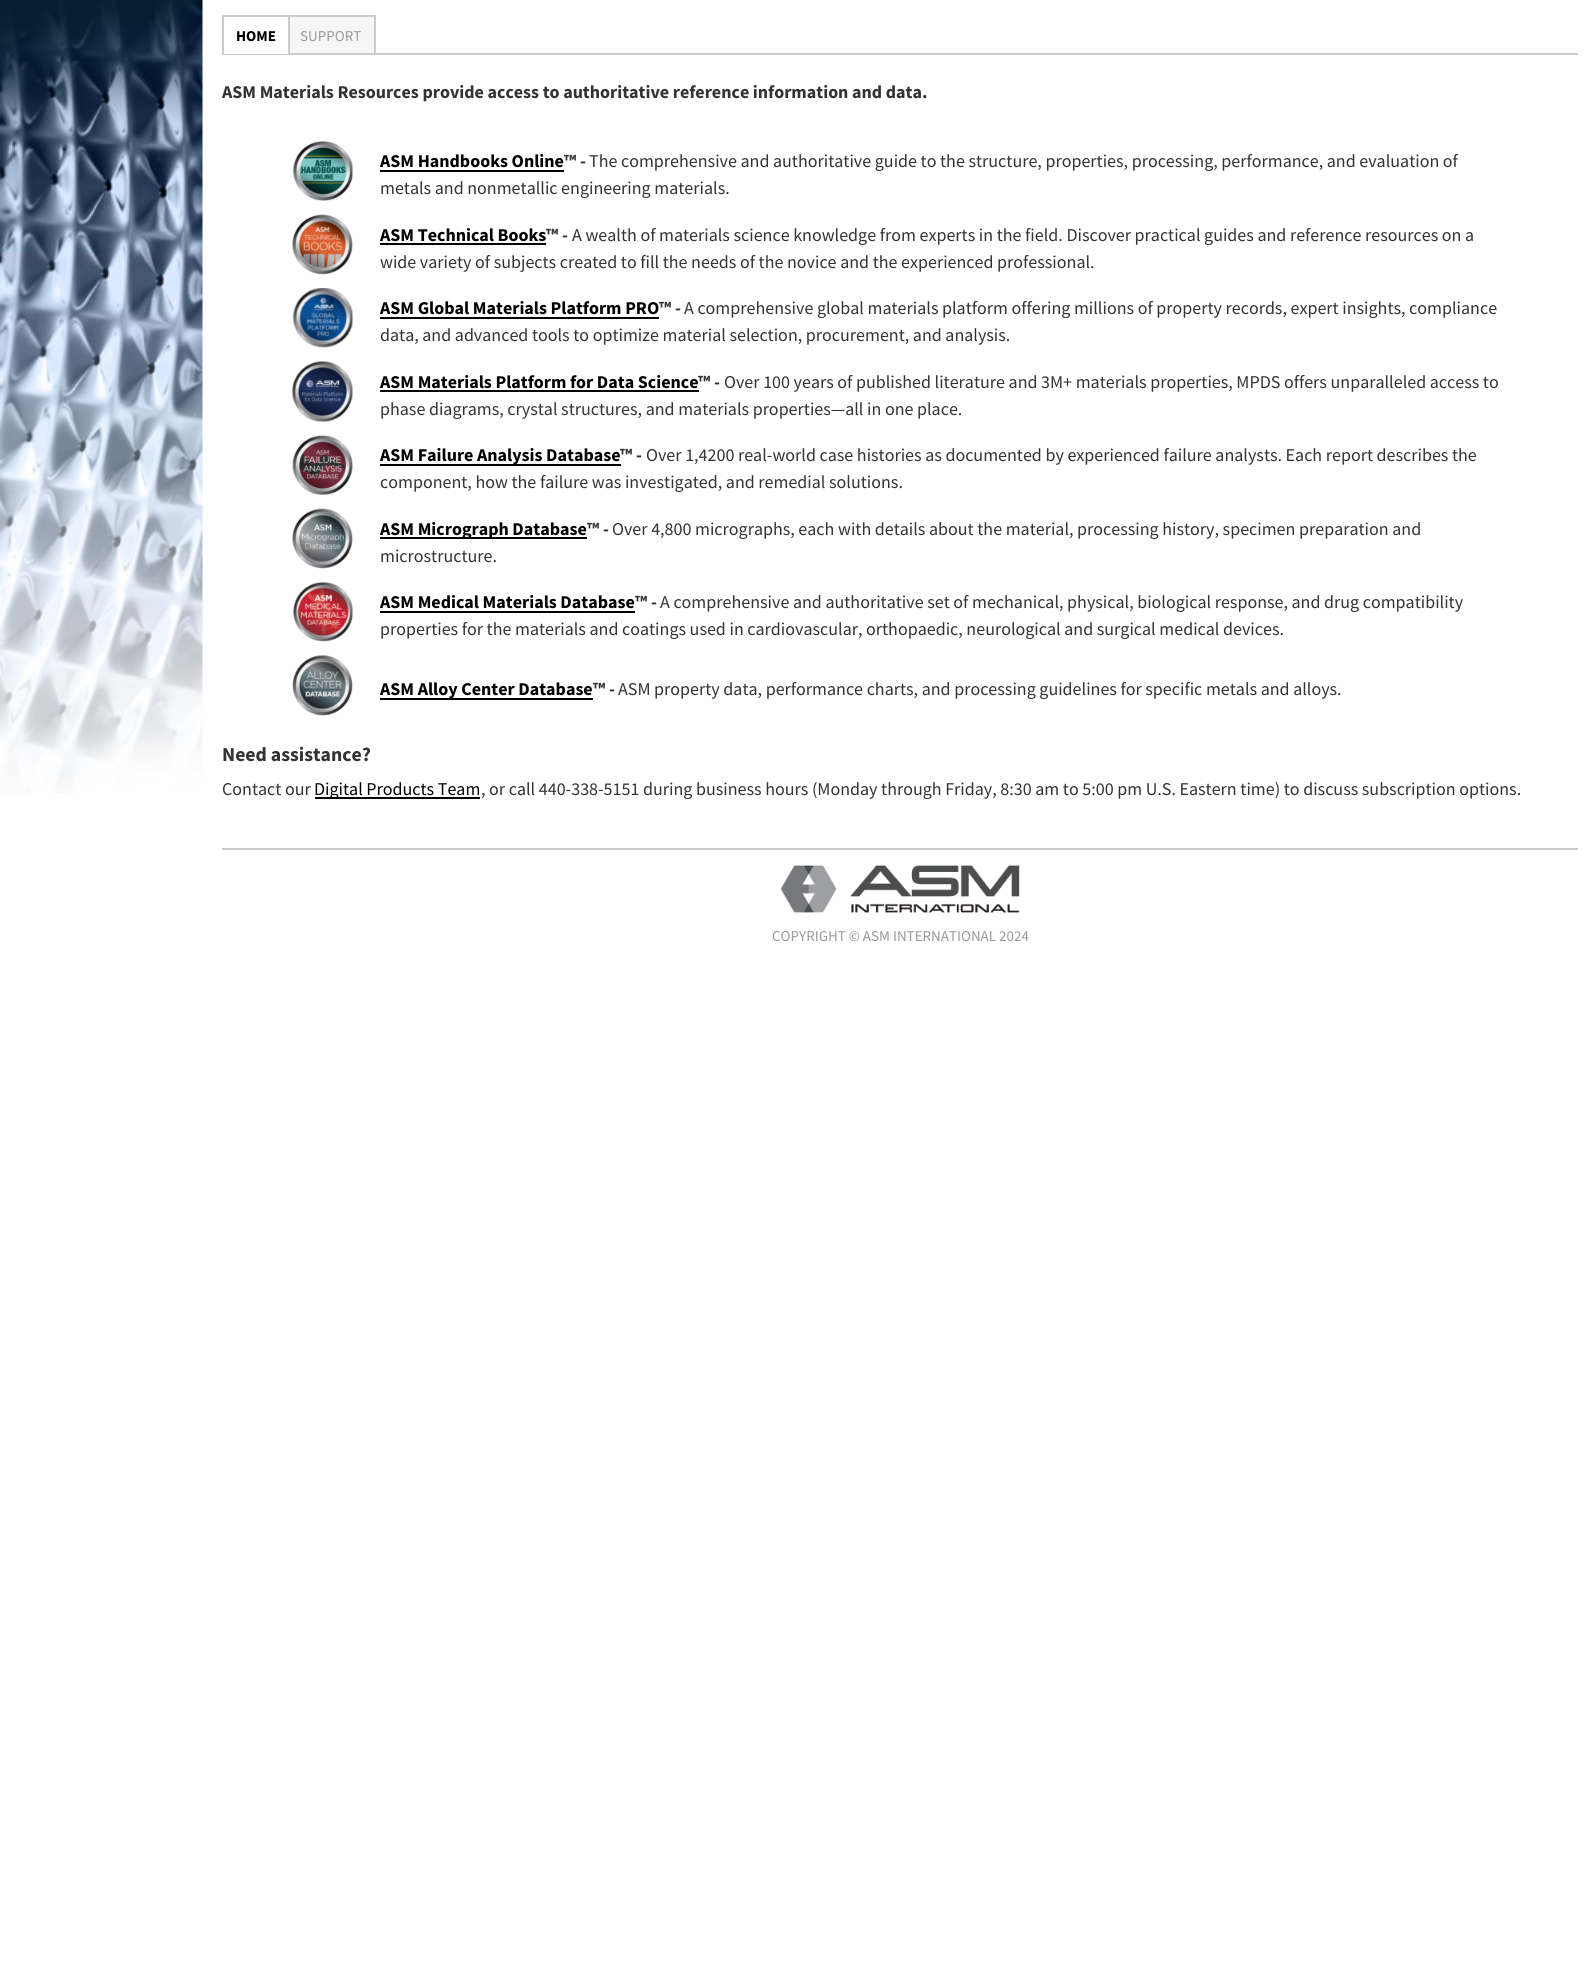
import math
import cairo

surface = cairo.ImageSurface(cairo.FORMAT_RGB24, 1592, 1988)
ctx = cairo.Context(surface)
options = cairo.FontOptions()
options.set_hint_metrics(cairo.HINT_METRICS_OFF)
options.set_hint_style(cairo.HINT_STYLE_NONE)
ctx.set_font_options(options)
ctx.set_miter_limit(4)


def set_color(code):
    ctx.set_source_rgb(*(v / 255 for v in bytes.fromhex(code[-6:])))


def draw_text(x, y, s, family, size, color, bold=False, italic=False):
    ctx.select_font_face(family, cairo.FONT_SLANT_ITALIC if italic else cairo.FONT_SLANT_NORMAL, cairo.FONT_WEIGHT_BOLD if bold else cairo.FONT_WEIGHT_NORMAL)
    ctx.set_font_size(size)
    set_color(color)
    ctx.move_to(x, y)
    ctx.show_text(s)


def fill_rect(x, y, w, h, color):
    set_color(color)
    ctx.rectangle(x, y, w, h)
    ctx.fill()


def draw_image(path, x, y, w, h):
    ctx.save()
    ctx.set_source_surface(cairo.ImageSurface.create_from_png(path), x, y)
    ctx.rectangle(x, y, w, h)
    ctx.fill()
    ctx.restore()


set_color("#ffffff")
ctx.paint()
draw_image("assets/img1.png", 0, 0, 203, 793)
fill_rect(222, 15, 153, 2, "#cbcbcb")
fill_rect(374, 15, 2, 39, "#cbcbcb")
fill_rect(222, 53, 1356, 2, "#cbcbcb")
fill_rect(224, 53, 64, 1, "#ffffff")
fill_rect(288, 15, 2, 39, "#cbcbcb")
fill_rect(222, 15, 2, 39, "#cbcbcb")
draw_text(236, 41, "HOME", "Source Sans Pro", 15, "#000000", bold=True)
fill_rect(290, 17, 84, 36, "#f6f6f6")
draw_text(300, 41, "SUPPORT", "Source Sans Pro", 15, "#999999")
draw_text(222, 98, "ASM Materials Resources provide access to authoritative reference information and data.", "Source Sans Pro", 18, "#333333", bold=True)
draw_image("assets/img2.png", 293, 141, 60, 60)
draw_text(380, 167, "ASM Handbooks Online", "Source Sans Pro", 18, "#000000", bold=True)
fill_rect(380, 170, 184, 2, "#000000")
draw_text(564, 167, "™ -", "Source Sans Pro", 18, "#333333", bold=True)
draw_text(589, 167, "The comprehensive and authoritative guide to the structure, properties, processing, performance, and evaluation of", "Source Sans Pro", 18, "#333333")
draw_text(380, 194, "metals and nonmetallic engineering materials.", "Source Sans Pro", 18, "#333333")
draw_image("assets/img3.png", 292, 214, 61, 61)
draw_text(380, 241, "ASM Technical Books", "Source Sans Pro", 18, "#000000", bold=True)
fill_rect(380, 243, 166, 2, "#000000")
draw_text(546, 241, "™ -", "Source Sans Pro", 18, "#333333", bold=True)
draw_text(572, 241, "A wealth of materials science knowledge from experts in the field. Discover practical guides and reference resources on a", "Source Sans Pro", 18, "#333333")
draw_text(380, 268, "wide variety of subjects created to fill the needs of the novice and the experienced professional.", "Source Sans Pro", 18, "#333333")
draw_image("assets/img4.png", 292, 288, 61, 60)
draw_text(380, 314, "ASM Global Materials Platform PRO", "Source Sans Pro", 18, "#000000", bold=True)
fill_rect(380, 317, 279, 2, "#000000")
draw_text(659, 314, "™ -", "Source Sans Pro", 18, "#333333", bold=True)
draw_text(684, 314, "A comprehensive global materials platform offering millions of property records, expert insights, compliance", "Source Sans Pro", 18, "#333333")
draw_text(380, 341, "data, and advanced tools to optimize material selection, procurement, and analysis.", "Source Sans Pro", 18, "#333333")
draw_image("assets/img5.png", 292, 361, 61, 61)
draw_text(380, 388, "ASM Materials Platform for Data Science", "Source Sans Pro", 18, "#000000", bold=True)
fill_rect(380, 390, 319, 2, "#000000")
draw_text(698, 388, "™ -", "Source Sans Pro", 18, "#333333", bold=True)
draw_text(724, 388, "Over 100 years of published literature and 3M+ materials properties, MPDS offers unparalleled access to", "Source Sans Pro", 18, "#333333")
draw_text(380, 415, "phase diagrams, crystal structures, and materials properties—all in one place.", "Source Sans Pro", 18, "#333333")
draw_image("assets/img6.png", 292, 435, 61, 60)
fill_rect(380, 464, 241, 2, "#000000")
draw_text(380, 461, "ASM Failure Analysis Database", "Source Sans Pro", 18, "#000000", bold=True)
draw_text(620, 461, "™ -", "Source Sans Pro", 18, "#333333", bold=True)
draw_text(646, 461, "Over 1,4200 real-world case histories as documented by experienced failure analysts. Each report describes the", "Source Sans Pro", 18, "#333333")
draw_text(380, 488, "component, how the failure was investigated, and remedial solutions.", "Source Sans Pro", 18, "#333333")
draw_image("assets/img7.png", 292, 508, 61, 61)
fill_rect(380, 537, 207, 2, "#000000")
draw_text(380, 535, "ASM Micrograph Database", "Source Sans Pro", 18, "#000000", bold=True)
draw_text(587, 535, "™ -", "Source Sans Pro", 18, "#333333", bold=True)
draw_text(612, 535, "Over 4,800 micrographs, each with details about the material, processing history, specimen preparation and", "Source Sans Pro", 18, "#333333")
draw_text(380, 562, "microstructure.", "Source Sans Pro", 18, "#333333")
draw_image("assets/img8.png", 293, 582, 60, 60)
draw_text(380, 608, "ASM Medical Materials Database", "Source Sans Pro", 18, "#000000", bold=True)
fill_rect(380, 611, 255, 2, "#000000")
draw_text(635, 608, "™ -", "Source Sans Pro", 18, "#333333", bold=True)
draw_text(660, 608, "A comprehensive and authoritative set of mechanical, physical, biological response, and drug compatibility", "Source Sans Pro", 18, "#333333")
draw_text(380, 635, "properties for the materials and coatings used in cardiovascular, orthopaedic, neurological and surgical medical devices.", "Source Sans Pro", 18, "#333333")
draw_image("assets/img9.png", 292, 655, 61, 61)
fill_rect(380, 698, 213, 2, "#000000")
draw_text(380, 695, "ASM Alloy Center Database", "Source Sans Pro", 18, "#000000", bold=True)
draw_text(593, 695, "™ -", "Source Sans Pro", 18, "#333333", bold=True)
draw_text(618, 695, "ASM property data, performance charts, and processing guidelines for specific metals and alloys.", "Source Sans Pro", 18, "#333333")
draw_text(222, 761, "Need assistance?", "Source Sans Pro", 19.75, "#333333", bold=True)
draw_text(222, 795, "Contact our", "Source Sans Pro", 18, "#333333")
fill_rect(315, 797, 165, 2, "#000000")
draw_text(314, 795, "Digital Products Team", "Source Sans Pro", 18, "#000000")
draw_text(481, 795, ", or call 440-338-5151 during business hours (Monday through Friday, 8:30 am to 5:00 pm U.S. Eastern time) to discuss subscription options.", "Source Sans Pro", 18, "#333333")
fill_rect(222, 848, 1356, 2, "#cccccc")
draw_image("assets/img10.png", 780, 865, 240, 48)
draw_text(772, 941, "COPYRIGHT © ASM INTERNATIONAL 2024", "Source Sans Pro", 15, "#999999")
surface.write_to_png("output.png")
